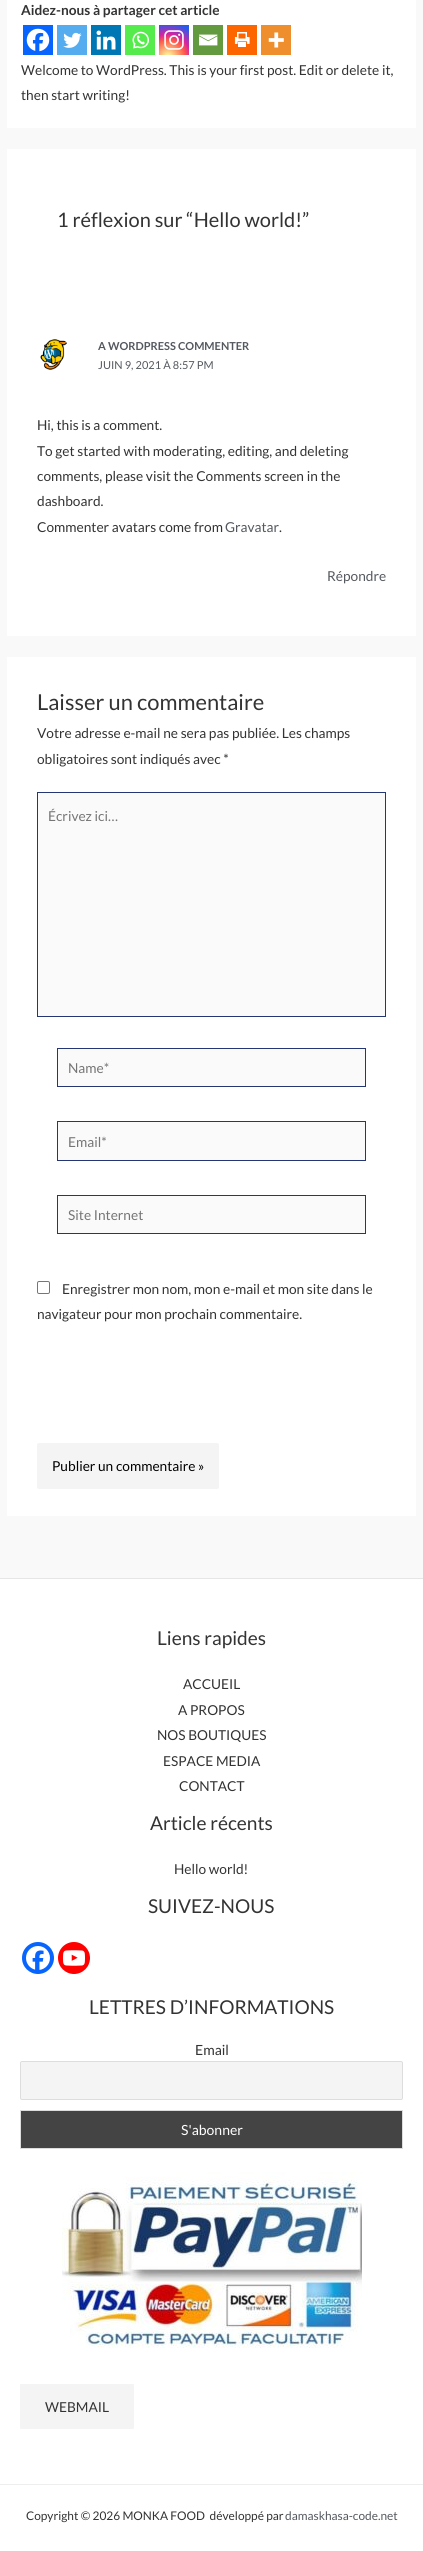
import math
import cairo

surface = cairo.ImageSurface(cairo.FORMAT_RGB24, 423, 2551)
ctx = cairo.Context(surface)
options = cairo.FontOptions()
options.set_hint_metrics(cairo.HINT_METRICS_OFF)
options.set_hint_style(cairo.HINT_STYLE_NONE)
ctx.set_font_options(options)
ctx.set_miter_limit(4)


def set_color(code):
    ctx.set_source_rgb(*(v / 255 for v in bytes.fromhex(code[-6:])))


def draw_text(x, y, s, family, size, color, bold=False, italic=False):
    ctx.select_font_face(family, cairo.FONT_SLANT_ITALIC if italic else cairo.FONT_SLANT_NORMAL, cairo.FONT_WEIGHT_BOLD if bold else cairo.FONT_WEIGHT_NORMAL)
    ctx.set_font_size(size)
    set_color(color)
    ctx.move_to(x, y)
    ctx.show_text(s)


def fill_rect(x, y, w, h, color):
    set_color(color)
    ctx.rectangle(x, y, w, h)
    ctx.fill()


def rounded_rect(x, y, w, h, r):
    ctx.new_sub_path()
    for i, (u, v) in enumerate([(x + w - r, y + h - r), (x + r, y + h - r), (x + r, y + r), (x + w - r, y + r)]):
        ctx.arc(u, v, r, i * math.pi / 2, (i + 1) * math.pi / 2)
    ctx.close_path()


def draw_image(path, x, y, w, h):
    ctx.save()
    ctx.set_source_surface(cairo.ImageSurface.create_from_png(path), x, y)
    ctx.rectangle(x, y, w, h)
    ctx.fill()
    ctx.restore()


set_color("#f9f9f9")
ctx.paint()
fill_rect(7, 0, 409, 128, "#ffffff")
draw_text(21, 15, "Aidez-nous à partager cet article", "Lato", 13.7, "#333333", bold=True)
fill_rect(23, 25, 30, 30, "#0765fe")
draw_image("assets/img1.png", 26, 28, 24, 24)
fill_rect(57, 25, 30, 30, "#55acee")
draw_image("assets/img2.png", 63, 32, 19, 16)
fill_rect(91, 25, 30, 30, "#0077b5")
draw_image("assets/img3.png", 96, 30, 20, 20)
fill_rect(125, 25, 30, 30, "#55eb4c")
draw_image("assets/img4.png", 132, 31, 17, 18)
gradient = cairo.RadialGradient(168, 57, 0, 168, 57, 38)
gradient.add_color_stop_rgba(0, 0.992, 0.957, 0.592, 1)
gradient.add_color_stop_rgba(0.05, 0.992, 0.957, 0.592, 1)
gradient.add_color_stop_rgba(0.45, 0.992, 0.349, 0.286, 1)
gradient.add_color_stop_rgba(0.6, 0.839, 0.141, 0.624, 1)
gradient.add_color_stop_rgba(0.9, 0.157, 0.353, 0.922, 1)
ctx.set_source(gradient)
ctx.rectangle(159, 25, 30, 30)
ctx.fill()
draw_image("assets/img5.png", 164, 30, 20, 20)
fill_rect(193, 25, 30, 30, "#649a3f")
draw_image("assets/img6.png", 199, 34, 19, 12)
fill_rect(227, 25, 30, 30, "#fd6500")
draw_image("assets/img7.png", 234, 32, 16, 15)
fill_rect(261, 25, 30, 30, "#ee8e2d")
draw_image("assets/img8.png", 268, 32, 16, 16)
draw_text(21, 75, "Welcome to WordPress. This is your first post. Edit or delete it,", "Lato", 13.7, "#333333")
draw_text(21, 100, "then start writing!", "Lato", 13.7, "#333333")
fill_rect(7, 149, 409, 487, "#ffffff")
draw_text(57, 227, "1 réflexion sur “Hello world!”", "Lato", 20, "#333333")
draw_image("assets/img9.png", 40, 339, 27, 31)
draw_text(98, 350, "A WORDPRESS COMMENTER", "Lato", 11, "#54595f", bold=True)
draw_text(98, 369, "JUIN 9, 2021 À 8:57 PM", "Lato", 11, "#54595f")
draw_text(37, 430, "Hi, this is a comment.", "Lato", 13.7, "#333333")
draw_text(37, 456, "To get started with moderating, editing, and deleting", "Lato", 13.7, "#333333")
draw_text(37, 481, "comments, please visit the Comments screen in the", "Lato", 13.7, "#333333")
draw_text(37, 506, "dashboard.", "Lato", 13.7, "#333333")
draw_text(37, 532, "Commenter avatars come from", "Lato", 13.7, "#333333")
draw_text(225, 532, "Gravatar", "Lato", 13.7, "#54595f")
draw_text(279, 532, ".", "Lato", 13.7, "#333333")
draw_text(327, 581, "Répondre", "Lato", 13.7, "#54595f")
fill_rect(7, 657, 409, 859, "#ffffff")
draw_text(37, 710, "Laisser un commentaire", "Lato", 21.9, "#333333")
draw_text(37, 738, "Votre adresse e-mail ne sera pas publiée. Les champs", "Lato", 13.7, "#333333")
draw_text(37, 764, "obligatoires sont indiqués avec *", "Lato", 13.7, "#333333")
set_color("#fafafa")
ctx.rectangle(37.5, 792.5, 348, 224)
ctx.fill_preserve()
set_color("#243673")
ctx.set_line_width(1)
ctx.stroke()
draw_text(48, 821, "Écrivez ici…", "Lato", 13.7, "#757575")
set_color("#fafafa")
ctx.rectangle(57.5, 1048.5, 308, 38)
ctx.fill_preserve()
set_color("#243673")
ctx.stroke()
draw_text(68, 1073, "Name*", "Lato", 13.7, "#757575")
set_color("#fafafa")
ctx.rectangle(57.5, 1121.5, 308, 39)
ctx.fill_preserve()
set_color("#243673")
ctx.stroke()
draw_text(68, 1147, "Email*", "Lato", 13.7, "#757575")
set_color("#fafafa")
ctx.rectangle(57.5, 1195.5, 308, 38)
ctx.fill_preserve()
set_color("#243673")
ctx.stroke()
draw_text(68, 1220, "Site Internet", "Lato", 13.7, "#757575")
rounded_rect(37.5, 1281.5, 12, 12, 1.5)
set_color("#767676")
ctx.stroke()
draw_text(62, 1294, "Enregistrer mon nom, mon e-mail et mon site dans le", "Lato", 13.7, "#333333")
draw_text(37, 1319, "navigateur pour mon prochain commentaire.", "Lato", 13.7, "#333333")
set_color("#f4f4f4")
rounded_rect(37, 1443, 182, 46, 2)
ctx.fill()
draw_text(52, 1471, "Publier un commentaire »", "Lato", 13.7, "#000000")
fill_rect(0, 1579, 423, 972, "#ffffff")
fill_rect(0, 1578, 423, 1, "#e6e6e6")
draw_text(157, 1645, "Liens rapides", "Lato", 19.1, "#333333")
draw_text(183, 1689, "ACCUEIL", "Lato", 13.7, "#333333")
draw_text(178, 1715, "A PROPOS", "Lato", 13.7, "#333333")
draw_text(157, 1740, "NOS BOUTIQUES", "Lato", 13.7, "#333333")
draw_text(163, 1766, "ESPACE MEDIA", "Lato", 13.7, "#333333")
draw_text(179, 1791, "CONTACT", "Lato", 13.7, "#333333")
draw_text(150, 1830, "Article récents", "Lato", 19.1, "#333333")
draw_text(174, 1874, "Hello world!", "Lato", 13.7, "#333333")
draw_text(148, 1913, "SUIVEZ-NOUS", "Lato", 19.1, "#333333")
set_color("#0765fe")
ctx.new_path()
ctx.arc(38, 1958, 16, 0, 2 * math.pi)
ctx.fill()
draw_image("assets/img10.png", 26, 1946, 24, 24)
set_color("#ff0000")
ctx.arc(74, 1958, 16, 0, 2 * math.pi)
ctx.fill()
draw_image("assets/img11.png", 63, 1950, 22, 16)
draw_text(89, 2014, "LETTRES D’INFORMATIONS", "Lato", 19.1, "#333333")
draw_text(195, 2055, "Email", "Lato", 14, "#333333")
set_color("#f4f4f4")
rounded_rect(20.5, 2061.5, 382, 38, 1.5)
ctx.fill_preserve()
set_color("#dddddd")
ctx.stroke()
set_color("#444444")
ctx.rectangle(20.5, 2110.5, 382, 38)
ctx.fill_preserve()
set_color("#dddddd")
ctx.stroke()
draw_text(181, 2135, "S'abonner", "Lato", 14, "#ffffff")
draw_image("assets/img12.png", 62, 2172, 300, 176)
set_color("#f4f4f4")
rounded_rect(20, 2384, 114, 45, 1)
ctx.fill()
draw_text(45, 2412, "WEBMAIL", "Lato", 13.7, "#333333")
fill_rect(0, 2484, 423, 1, "#eeeeee")
draw_text(26, 2520, "Copyright © 2026 MONKA FOOD  développé par", "Lato", 11.9, "#333333")
draw_text(285, 2520, "damaskhasa-code.net", "Lato", 11.9, "#54595f")
surface.write_to_png("output.png")
